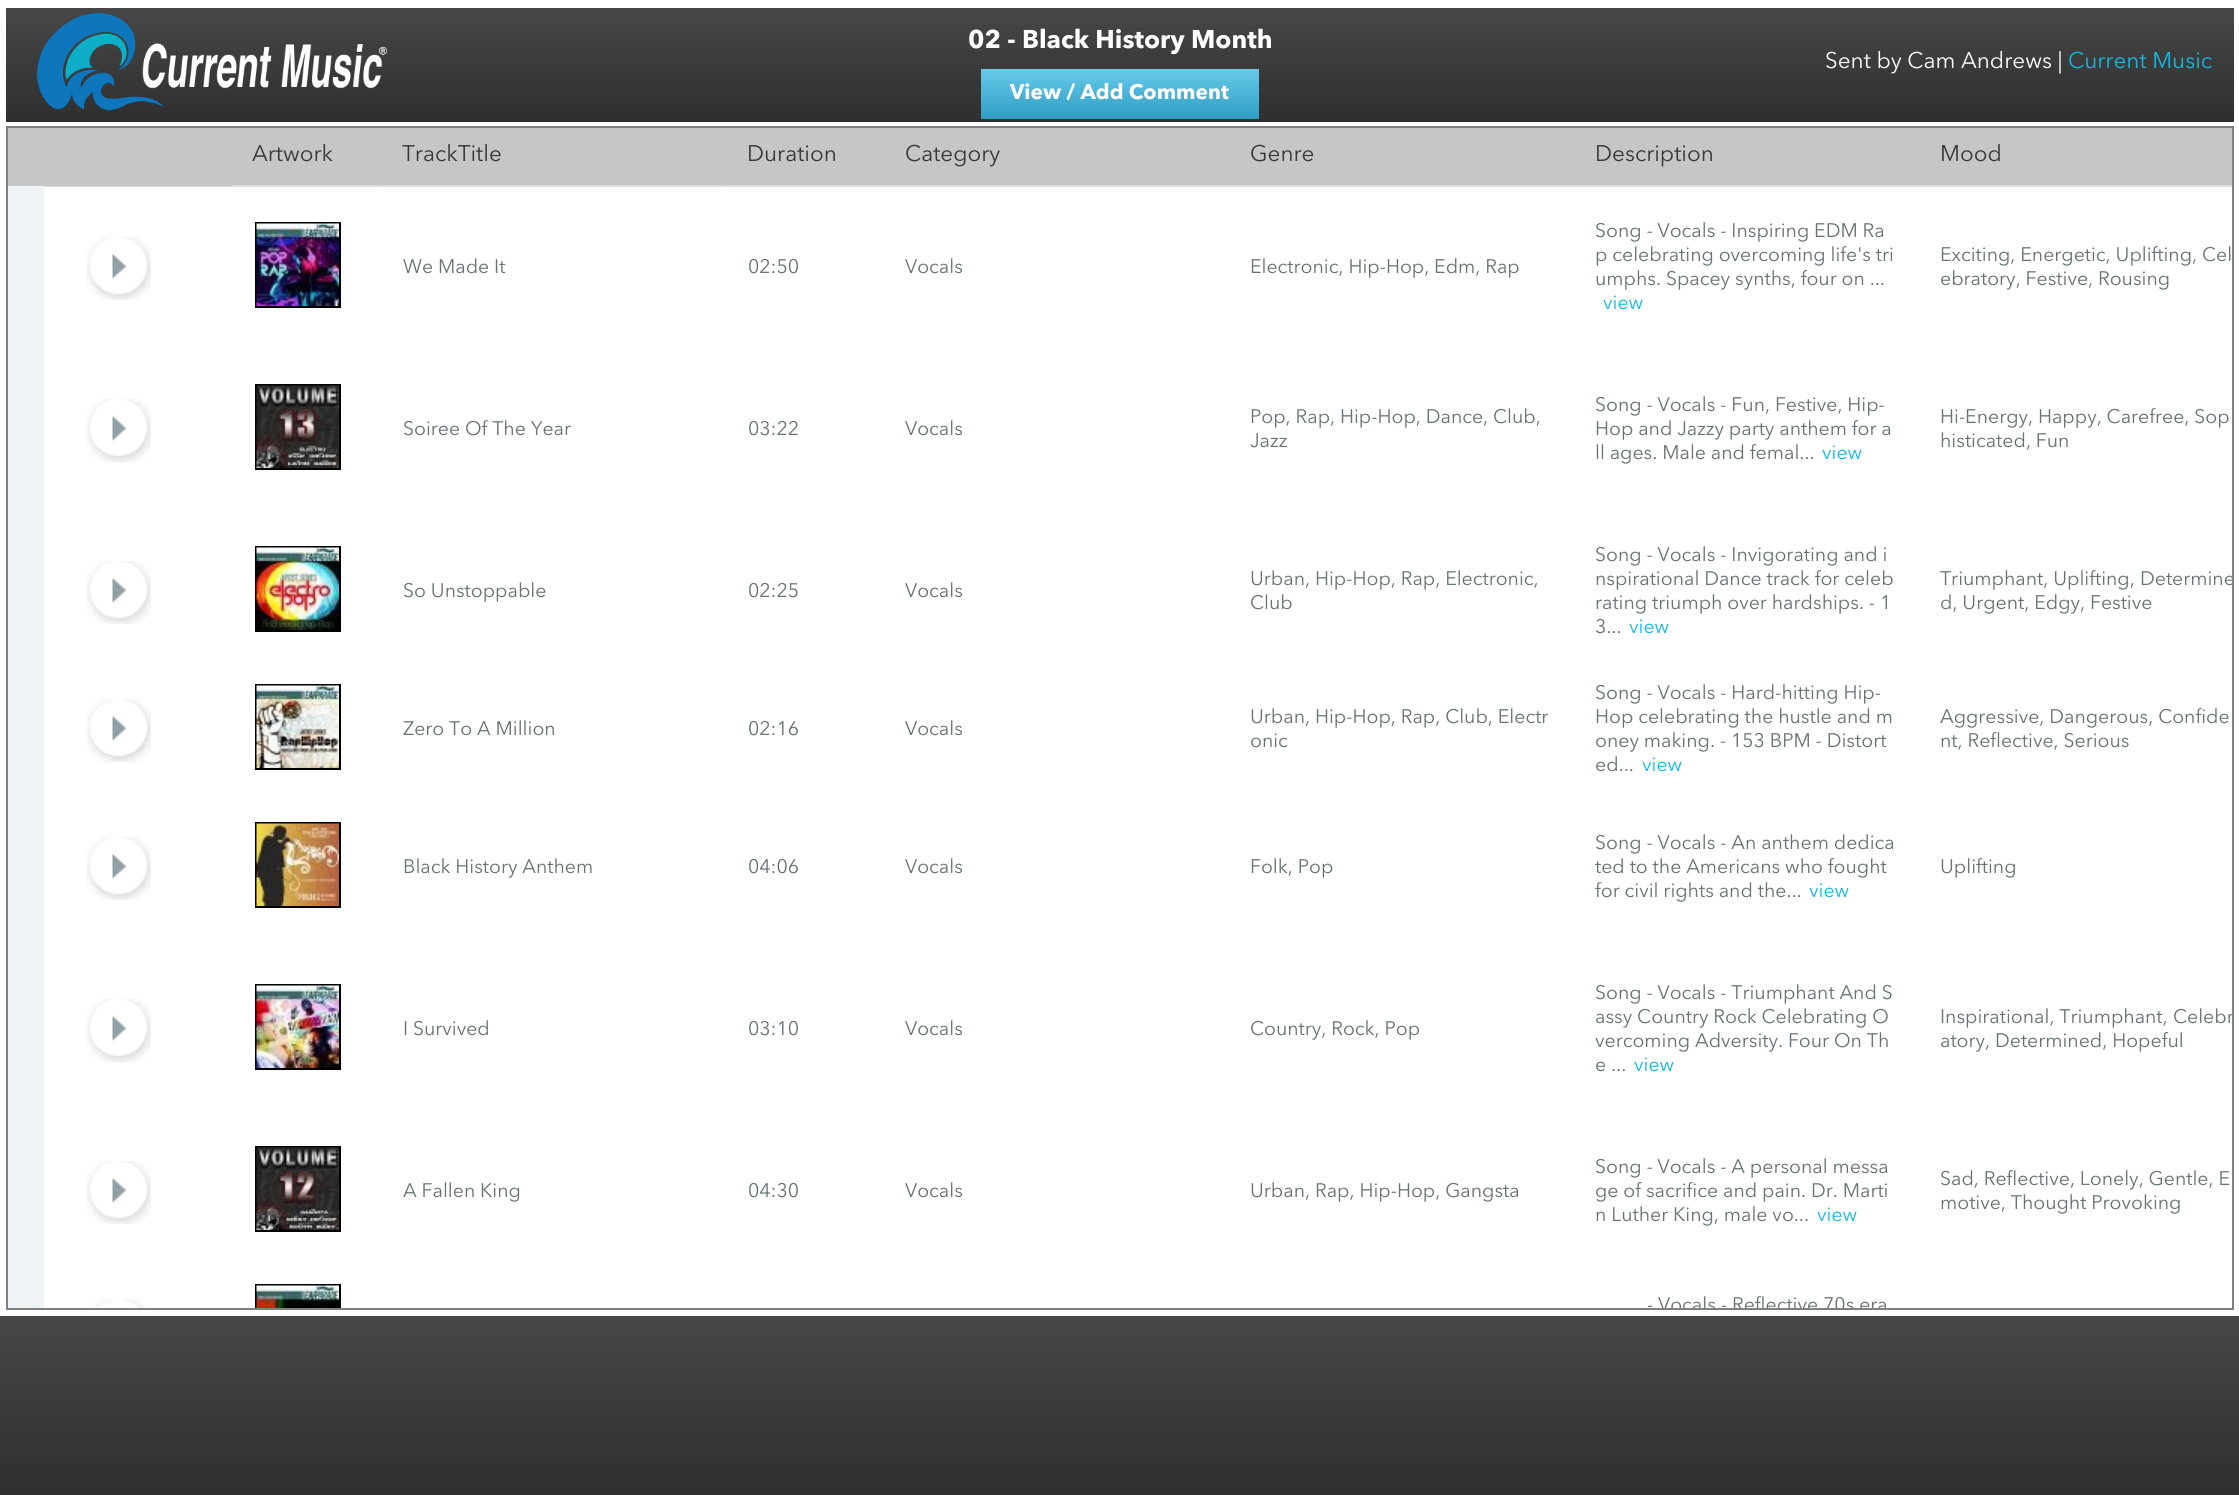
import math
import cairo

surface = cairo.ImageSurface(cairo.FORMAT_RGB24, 2239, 1495)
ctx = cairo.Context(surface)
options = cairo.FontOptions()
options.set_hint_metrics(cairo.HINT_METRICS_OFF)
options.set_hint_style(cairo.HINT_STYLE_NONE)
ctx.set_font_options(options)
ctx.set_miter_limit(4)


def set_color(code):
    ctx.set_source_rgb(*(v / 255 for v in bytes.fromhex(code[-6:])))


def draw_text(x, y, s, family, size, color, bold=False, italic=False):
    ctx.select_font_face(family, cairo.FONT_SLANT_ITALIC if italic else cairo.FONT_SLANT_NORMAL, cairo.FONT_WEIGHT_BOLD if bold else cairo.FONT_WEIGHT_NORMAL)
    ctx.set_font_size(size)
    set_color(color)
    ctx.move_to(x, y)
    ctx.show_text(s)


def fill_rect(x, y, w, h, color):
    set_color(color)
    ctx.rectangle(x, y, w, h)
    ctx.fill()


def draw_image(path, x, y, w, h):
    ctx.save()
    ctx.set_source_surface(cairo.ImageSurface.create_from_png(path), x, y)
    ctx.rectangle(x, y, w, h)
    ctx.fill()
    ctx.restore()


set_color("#ffffff")
ctx.paint()
gradient = cairo.LinearGradient(6, 7.5, 6, 122)
gradient.add_color_stop_rgba(0, 0.278, 0.278, 0.278, 1)
gradient.add_color_stop_rgba(1, 0.184, 0.184, 0.184, 1)
ctx.set_source(gradient)
ctx.rectangle(6, 8, 2228, 114)
ctx.fill()
draw_image("assets/img1.png", 36, 12, 352, 99)
draw_text(968, 48, "02 - Black History Month", "Avenir Next", 25.5, "#ffffff", bold=True)
gradient = cairo.LinearGradient(981, 69, 981, 119)
gradient.add_color_stop_rgba(0, 0.408, 0.792, 0.918, 1)
gradient.add_color_stop_rgba(1, 0.18, 0.616, 0.765, 1)
ctx.set_source(gradient)
ctx.rectangle(981, 69, 278, 50)
ctx.fill()
draw_text(1010, 99, "View / Add Comment", "Avenir Next", 21, "#ffffff", bold=True)
draw_text(1825, 68, "Sent by Cam Andrews |", "Avenir Next", 22.5, "#ffffff")
draw_text(2068, 68, "Current Music", "Avenir Next", 22.5, "#11b9e1")
ctx.rectangle(7, 127, 2226, 1182)
set_color("#808080")
ctx.stroke()
fill_rect(232, 128, 2000, 57, "#c6c6c6")
fill_rect(1917, 185, 315, 2, "#dddddd")
fill_rect(1917, 185, 2, 1, "#c6c6c6")
fill_rect(1572, 185, 347, 2, "#dddddd")
fill_rect(1572, 185, 2, 1, "#c6c6c6")
fill_rect(1227, 185, 347, 2, "#dddddd")
fill_rect(1227, 185, 2, 1, "#c6c6c6")
fill_rect(882, 185, 347, 2, "#dddddd")
fill_rect(882, 185, 2, 1, "#c6c6c6")
fill_rect(725, 185, 159, 2, "#dddddd")
fill_rect(725, 185, 2, 1, "#c6c6c6")
fill_rect(380, 185, 346, 2, "#dddddd")
fill_rect(380, 185, 2, 1, "#c6c6c6")
fill_rect(230, 185, 151, 2, "#dddddd")
fill_rect(8, 128, 223, 58, "#c6c6c6")
fill_rect(231, 128, 1, 58, "#c6c6c6")
fill_rect(42, 186, 189, 1, "#dddddd")
draw_text(252, 161, "Artwork", "Avenir Next", 22.5, "#373737")
draw_text(402, 161, "TrackTitle", "Avenir Next", 22.5, "#373737")
draw_text(747, 161, "Duration", "Avenir Next", 22.5, "#373737")
draw_text(905, 161, "Category", "Avenir Next", 22.5, "#373737")
draw_text(1250, 161, "Genre", "Avenir Next", 22.5, "#373737")
draw_text(1595, 161, "Description", "Avenir Next", 22.5, "#373737")
draw_text(1940, 161, "Mood", "Avenir Next", 22.5, "#373737")
fill_rect(8, 186, 36, 1122, "#eef3f6")
draw_image("assets/img2.png", 86, 237, 65, 63)
ctx.rectangle(256, 223, 84, 84)
set_color("#000000")
ctx.stroke()
draw_image("assets/img3.png", 256, 223, 83, 83)
draw_text(403, 273, "We Made It", "Avenir Next", 19.5, "#667275")
draw_text(748, 273, "02:50", "Avenir Next", 19.5, "#667275")
draw_text(905, 273, "Vocals", "Avenir Next", 19.5, "#667275")
draw_text(1250, 273, "Electronic, Hip-Hop, Edm, Rap", "Avenir Next", 19.5, "#667275")
draw_text(1595, 237, "Song - Vocals - Inspiring EDM Ra", "Avenir Next", 19.5, "#667275")
draw_text(1595, 261, "p celebrating overcoming life's tri", "Avenir Next", 19.5, "#667275")
draw_text(1595, 285, "umphs. Spacey synths, four on ...", "Avenir Next", 19.5, "#667275")
draw_text(1603, 309, "view", "Avenir Next", 19.5, "#11b9e1")
draw_text(1940, 261, "Exciting, Energetic, Uplifting, Cel", "Avenir Next", 19.5, "#667275")
draw_text(1940, 285, "ebratory, Festive, Rousing", "Avenir Next", 19.5, "#667275")
draw_image("assets/img2.png", 86, 399, 65, 63)
ctx.rectangle(256, 385, 84, 84)
set_color("#000000")
ctx.stroke()
draw_image("assets/img4.png", 256, 385, 83, 83)
draw_text(403, 435, "Soiree Of The Year", "Avenir Next", 19.5, "#667275")
draw_text(748, 435, "03:22", "Avenir Next", 19.5, "#667275")
draw_text(905, 435, "Vocals", "Avenir Next", 19.5, "#667275")
draw_text(1250, 423, "Pop, Rap, Hip-Hop, Dance, Club,", "Avenir Next", 19.5, "#667275")
draw_text(1250, 447, "Jazz", "Avenir Next", 19.5, "#667275")
draw_text(1595, 411, "Song - Vocals - Fun, Festive, Hip-", "Avenir Next", 19.5, "#667275")
draw_text(1595, 435, "Hop and Jazzy party anthem for a", "Avenir Next", 19.5, "#667275")
draw_text(1595, 459, "ll ages. Male and femal...", "Avenir Next", 19.5, "#667275")
draw_text(1822, 459, "view", "Avenir Next", 19.5, "#11b9e1")
draw_text(1940, 423, "Hi-Energy, Happy, Carefree, Sop", "Avenir Next", 19.5, "#667275")
draw_text(1940, 447, "histicated, Fun", "Avenir Next", 19.5, "#667275")
draw_image("assets/img2.png", 86, 561, 65, 63)
ctx.rectangle(256, 547, 84, 84)
set_color("#000000")
ctx.stroke()
draw_image("assets/img5.png", 256, 547, 83, 83)
draw_text(403, 597, "So Unstoppable", "Avenir Next", 19.5, "#667275")
draw_text(748, 597, "02:25", "Avenir Next", 19.5, "#667275")
draw_text(905, 597, "Vocals", "Avenir Next", 19.5, "#667275")
draw_text(1250, 585, "Urban, Hip-Hop, Rap, Electronic,", "Avenir Next", 19.5, "#667275")
draw_text(1250, 609, "Club", "Avenir Next", 19.5, "#667275")
draw_text(1595, 561, "Song - Vocals - Invigorating and i", "Avenir Next", 19.5, "#667275")
draw_text(1595, 585, "nspirational Dance track for celeb", "Avenir Next", 19.5, "#667275")
draw_text(1595, 609, "rating triumph over hardships. - 1", "Avenir Next", 19.5, "#667275")
draw_text(1595, 633, "3...", "Avenir Next", 19.5, "#667275")
draw_text(1629, 633, "view", "Avenir Next", 19.5, "#11b9e1")
draw_text(1940, 585, "Triumphant, Uplifting,", "Avenir Next", 19.5, "#667275")
ctx.save()
ctx.rectangle(1919, 537, 313, 111)
ctx.clip()
draw_text(2140, 585, "Determine", "Avenir Next", 19.5, "#667275")
ctx.restore()
draw_text(1940, 609, "d, Urgent, Edgy, Festive", "Avenir Next", 19.5, "#667275")
draw_image("assets/img2.png", 86, 699, 65, 63)
ctx.rectangle(256, 685, 84, 84)
set_color("#000000")
ctx.stroke()
draw_image("assets/img6.png", 256, 685, 83, 83)
draw_text(403, 735, "Zero To A Million", "Avenir Next", 19.5, "#667275")
draw_text(748, 735, "02:16", "Avenir Next", 19.5, "#667275")
draw_text(905, 735, "Vocals", "Avenir Next", 19.5, "#667275")
draw_text(1250, 723, "Urban, Hip-Hop, Rap, Club, Electr", "Avenir Next", 19.5, "#667275")
draw_text(1250, 747, "onic", "Avenir Next", 19.5, "#667275")
draw_text(1595, 699, "Song - Vocals - Hard-hitting Hip-", "Avenir Next", 19.5, "#667275")
draw_text(1595, 723, "Hop celebrating the hustle and m", "Avenir Next", 19.5, "#667275")
draw_text(1595, 747, "oney making. - 153 BPM - Distort", "Avenir Next", 19.5, "#667275")
draw_text(1595, 771, "ed...", "Avenir Next", 19.5, "#667275")
draw_text(1642, 771, "view", "Avenir Next", 19.5, "#11b9e1")
draw_text(1940, 723, "Aggressive, Dangerous, Confide", "Avenir Next", 19.5, "#667275")
draw_text(1940, 747, "nt, Reflective, Serious", "Avenir Next", 19.5, "#667275")
draw_image("assets/img2.png", 86, 837, 65, 63)
ctx.rectangle(256, 823, 84, 84)
set_color("#000000")
ctx.stroke()
draw_image("assets/img7.png", 256, 823, 83, 83)
draw_text(403, 873, "Black History Anthem", "Avenir Next", 19.5, "#667275")
draw_text(748, 873, "04:06", "Avenir Next", 19.5, "#667275")
draw_text(905, 873, "Vocals", "Avenir Next", 19.5, "#667275")
draw_text(1250, 873, "Folk, Pop", "Avenir Next", 19.5, "#667275")
draw_text(1595, 849, "Song - Vocals - An anthem dedica", "Avenir Next", 19.5, "#667275")
draw_text(1595, 873, "ted to the Americans who fought", "Avenir Next", 19.5, "#667275")
draw_text(1595, 897, "for civil rights and the...", "Avenir Next", 19.5, "#667275")
draw_text(1809, 897, "view", "Avenir Next", 19.5, "#11b9e1")
draw_text(1940, 873, "Uplifting", "Avenir Next", 19.5, "#667275")
draw_image("assets/img2.png", 86, 999, 65, 63)
ctx.rectangle(256, 985, 84, 84)
set_color("#000000")
ctx.stroke()
draw_image("assets/img8.png", 256, 985, 83, 83)
draw_text(403, 1035, "I Survived", "Avenir Next", 19.5, "#667275")
draw_text(748, 1035, "03:10", "Avenir Next", 19.5, "#667275")
draw_text(905, 1035, "Vocals", "Avenir Next", 19.5, "#667275")
draw_text(1250, 1035, "Country, Rock, Pop", "Avenir Next", 19.5, "#667275")
draw_text(1595, 999, "Song - Vocals - Triumphant And S", "Avenir Next", 19.5, "#667275")
draw_text(1595, 1023, "assy Country Rock Celebrating O", "Avenir Next", 19.5, "#667275")
draw_text(1595, 1047, "vercoming Adversity. Four On Th", "Avenir Next", 19.5, "#667275")
draw_text(1595, 1071, "e ...", "Avenir Next", 19.5, "#667275")
draw_text(1634, 1071, "view", "Avenir Next", 19.5, "#11b9e1")
draw_text(1940, 1023, "Inspirational, Triumphant,", "Avenir Next", 19.5, "#667275")
ctx.save()
ctx.rectangle(1919, 951, 313, 159)
ctx.clip()
draw_text(2173, 1023, "Celebr", "Avenir Next", 19.5, "#667275")
ctx.restore()
draw_text(1940, 1047, "atory, Determined, Hopeful", "Avenir Next", 19.5, "#667275")
draw_image("assets/img2.png", 86, 1161, 65, 63)
ctx.rectangle(256, 1147, 84, 84)
set_color("#000000")
ctx.stroke()
draw_image("assets/img9.png", 256, 1147, 83, 83)
draw_text(403, 1197, "A Fallen King", "Avenir Next", 19.5, "#667275")
draw_text(748, 1197, "04:30", "Avenir Next", 19.5, "#667275")
draw_text(905, 1197, "Vocals", "Avenir Next", 19.5, "#667275")
draw_text(1250, 1197, "Urban, Rap, Hip-Hop, Gangsta", "Avenir Next", 19.5, "#667275")
draw_text(1595, 1173, "Song - Vocals - A personal messa", "Avenir Next", 19.5, "#667275")
draw_text(1595, 1197, "ge of sacrifice and pain. Dr. Marti", "Avenir Next", 19.5, "#667275")
draw_text(1595, 1221, "n Luther King, male vo...", "Avenir Next", 19.5, "#667275")
draw_text(1817, 1221, "view", "Avenir Next", 19.5, "#11b9e1")
draw_text(1940, 1185, "Sad, Reflective, Lonely, Gentle, E", "Avenir Next", 19.5, "#667275")
draw_text(1940, 1209, "motive, Thought Provoking", "Avenir Next", 19.5, "#667275")
draw_image("assets/img10.png", 94, 1299, 52, 9)
ctx.save()
ctx.rectangle(231, 1275, 150, 33)
ctx.clip()
ctx.rectangle(256, 1285, 84, 84)
set_color("#000000")
ctx.stroke()
ctx.restore()
draw_image("assets/img11.png", 256, 1285, 83, 23)
draw_text(1647, 1311, "-", "Avenir Next", 19.5, "#667275")
ctx.save()
ctx.rectangle(1574, 1275, 345, 33)
ctx.clip()
draw_text(1658, 1311, "Vocals", "Avenir Next", 19.5, "#667275")
ctx.restore()
draw_text(1721, 1311, "-", "Avenir Next", 19.5, "#667275")
ctx.save()
ctx.rectangle(1574, 1275, 345, 33)
ctx.clip()
draw_text(1732, 1311, "Reflective 70s era", "Avenir Next", 19.5, "#667275")
ctx.restore()
gradient = cairo.LinearGradient(0, 1316, 0, 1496)
gradient.add_color_stop_rgba(0, 0.278, 0.278, 0.278, 1)
gradient.add_color_stop_rgba(1, 0.184, 0.184, 0.184, 1)
ctx.set_source(gradient)
ctx.rectangle(0, 1316, 2239, 179)
ctx.fill()
surface.write_to_png("output.png")
